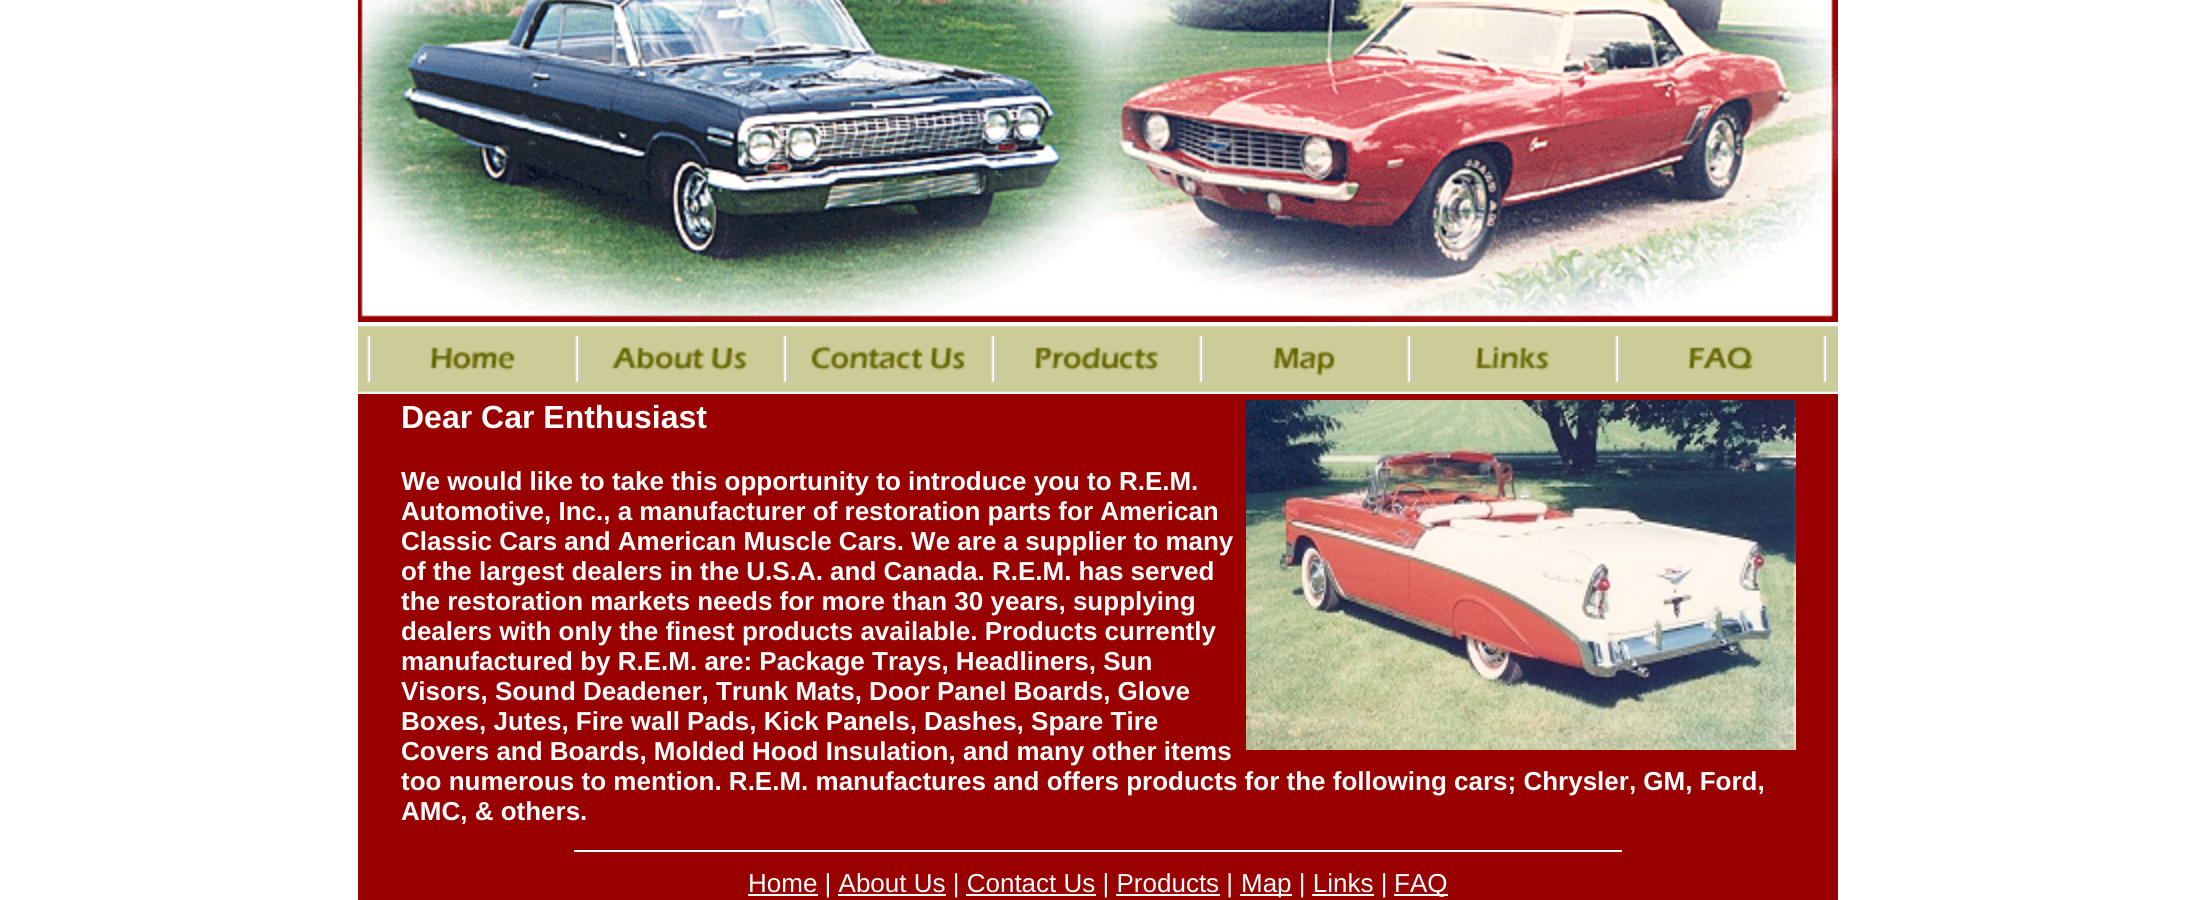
import math
import cairo

surface = cairo.ImageSurface(cairo.FORMAT_RGB24, 2196, 900)
ctx = cairo.Context(surface)
options = cairo.FontOptions()
options.set_hint_metrics(cairo.HINT_METRICS_OFF)
options.set_hint_style(cairo.HINT_STYLE_NONE)
ctx.set_font_options(options)
ctx.set_miter_limit(4)


def set_color(code):
    ctx.set_source_rgb(*(v / 255 for v in bytes.fromhex(code[-6:])))


def draw_text(x, y, s, family, size, color, bold=False, italic=False):
    ctx.select_font_face(family, cairo.FONT_SLANT_ITALIC if italic else cairo.FONT_SLANT_NORMAL, cairo.FONT_WEIGHT_BOLD if bold else cairo.FONT_WEIGHT_NORMAL)
    ctx.set_font_size(size)
    set_color(color)
    ctx.move_to(x, y)
    ctx.show_text(s)


def fill_rect(x, y, w, h, color):
    set_color(color)
    ctx.rectangle(x, y, w, h)
    ctx.fill()


def draw_image(path, x, y, w, h):
    ctx.save()
    ctx.set_source_surface(cairo.ImageSurface.create_from_png(path), x, y)
    ctx.rectangle(x, y, w, h)
    ctx.fill()
    ctx.restore()


set_color("#ffffff")
ctx.paint()
draw_image("assets/img1.png", 358, 0, 1480, 322)
draw_image("assets/img2.png", 358, 325, 1480, 68)
draw_image("assets/img3.png", 367, 335, 3, 48)
draw_image("assets/img4.png", 370, 335, 208, 48)
draw_image("assets/img5.png", 578, 335, 208, 48)
draw_image("assets/img6.png", 786, 335, 208, 48)
draw_image("assets/img7.png", 994, 335, 208, 48)
draw_image("assets/img8.png", 1202, 335, 208, 48)
draw_image("assets/img9.png", 1410, 335, 208, 48)
draw_image("assets/img10.png", 1618, 335, 208, 48)
draw_image("assets/img11.png", 1826, 335, 3, 48)
fill_rect(358, 394, 1480, 506, "#990000")
draw_text(401, 428, "Dear Car Enthusiast", "Liberation Sans", 32, "#ffffff", bold=True)
draw_image("assets/img12.png", 1246, 400, 550, 350)
draw_text(401, 490, "We would like to take this opportunity to introduce you to R.E.M.", "Liberation Sans", 26, "#ffffff", bold=True)
draw_text(401, 520, "Automotive, Inc., a manufacturer of restoration parts for American", "Liberation Sans", 26, "#ffffff", bold=True)
draw_text(401, 550, "Classic Cars and American Muscle Cars. We are a supplier to many", "Liberation Sans", 26, "#ffffff", bold=True)
draw_text(401, 580, "of the largest dealers in the U.S.A. and Canada. R.E.M. has served", "Liberation Sans", 26, "#ffffff", bold=True)
draw_text(401, 610, "the restoration markets needs for more than 30 years, supplying", "Liberation Sans", 26, "#ffffff", bold=True)
draw_text(401, 640, "dealers with only the finest products available. Products currently", "Liberation Sans", 26, "#ffffff", bold=True)
draw_text(401, 670, "manufactured by R.E.M. are: Package Trays, Headliners, Sun", "Liberation Sans", 26, "#ffffff", bold=True)
draw_text(401, 700, "Visors, Sound Deadener, Trunk Mats, Door Panel Boards, Glove", "Liberation Sans", 26, "#ffffff", bold=True)
draw_text(401, 730, "Boxes, Jutes, Fire wall Pads, Kick Panels, Dashes, Spare Tire", "Liberation Sans", 26, "#ffffff", bold=True)
draw_text(401, 760, "Covers and Boards, Molded Hood Insulation, and many other items", "Liberation Sans", 26, "#ffffff", bold=True)
draw_text(401, 790, "too numerous to mention. R.E.M. manufactures and offers products for the following cars; Chrysler, GM, Ford,", "Liberation Sans", 26, "#ffffff", bold=True)
draw_text(401, 820, "AMC, & others.", "Liberation Sans", 26, "#ffffff", bold=True)
fill_rect(574, 850, 1048, 2, "#ffffff")
fill_rect(748, 894, 70, 2, "#ffffff")
draw_text(748, 892, "Home | About Us | Contact Us | Products |", "Liberation Sans", 26, "#ffffff")
fill_rect(838, 894, 108, 2, "#ffffff")
fill_rect(966, 894, 130, 2, "#ffffff")
fill_rect(1116, 894, 104, 2, "#ffffff")
fill_rect(1240, 894, 52, 2, "#ffffff")
draw_text(1241, 892, "Map | Links |", "Liberation Sans", 26, "#ffffff")
fill_rect(1312, 894, 62, 2, "#ffffff")
fill_rect(1394, 894, 54, 2, "#ffffff")
draw_text(1394, 892, "FAQ", "Liberation Sans", 26, "#ffffff")
surface.write_to_png("output.png")
